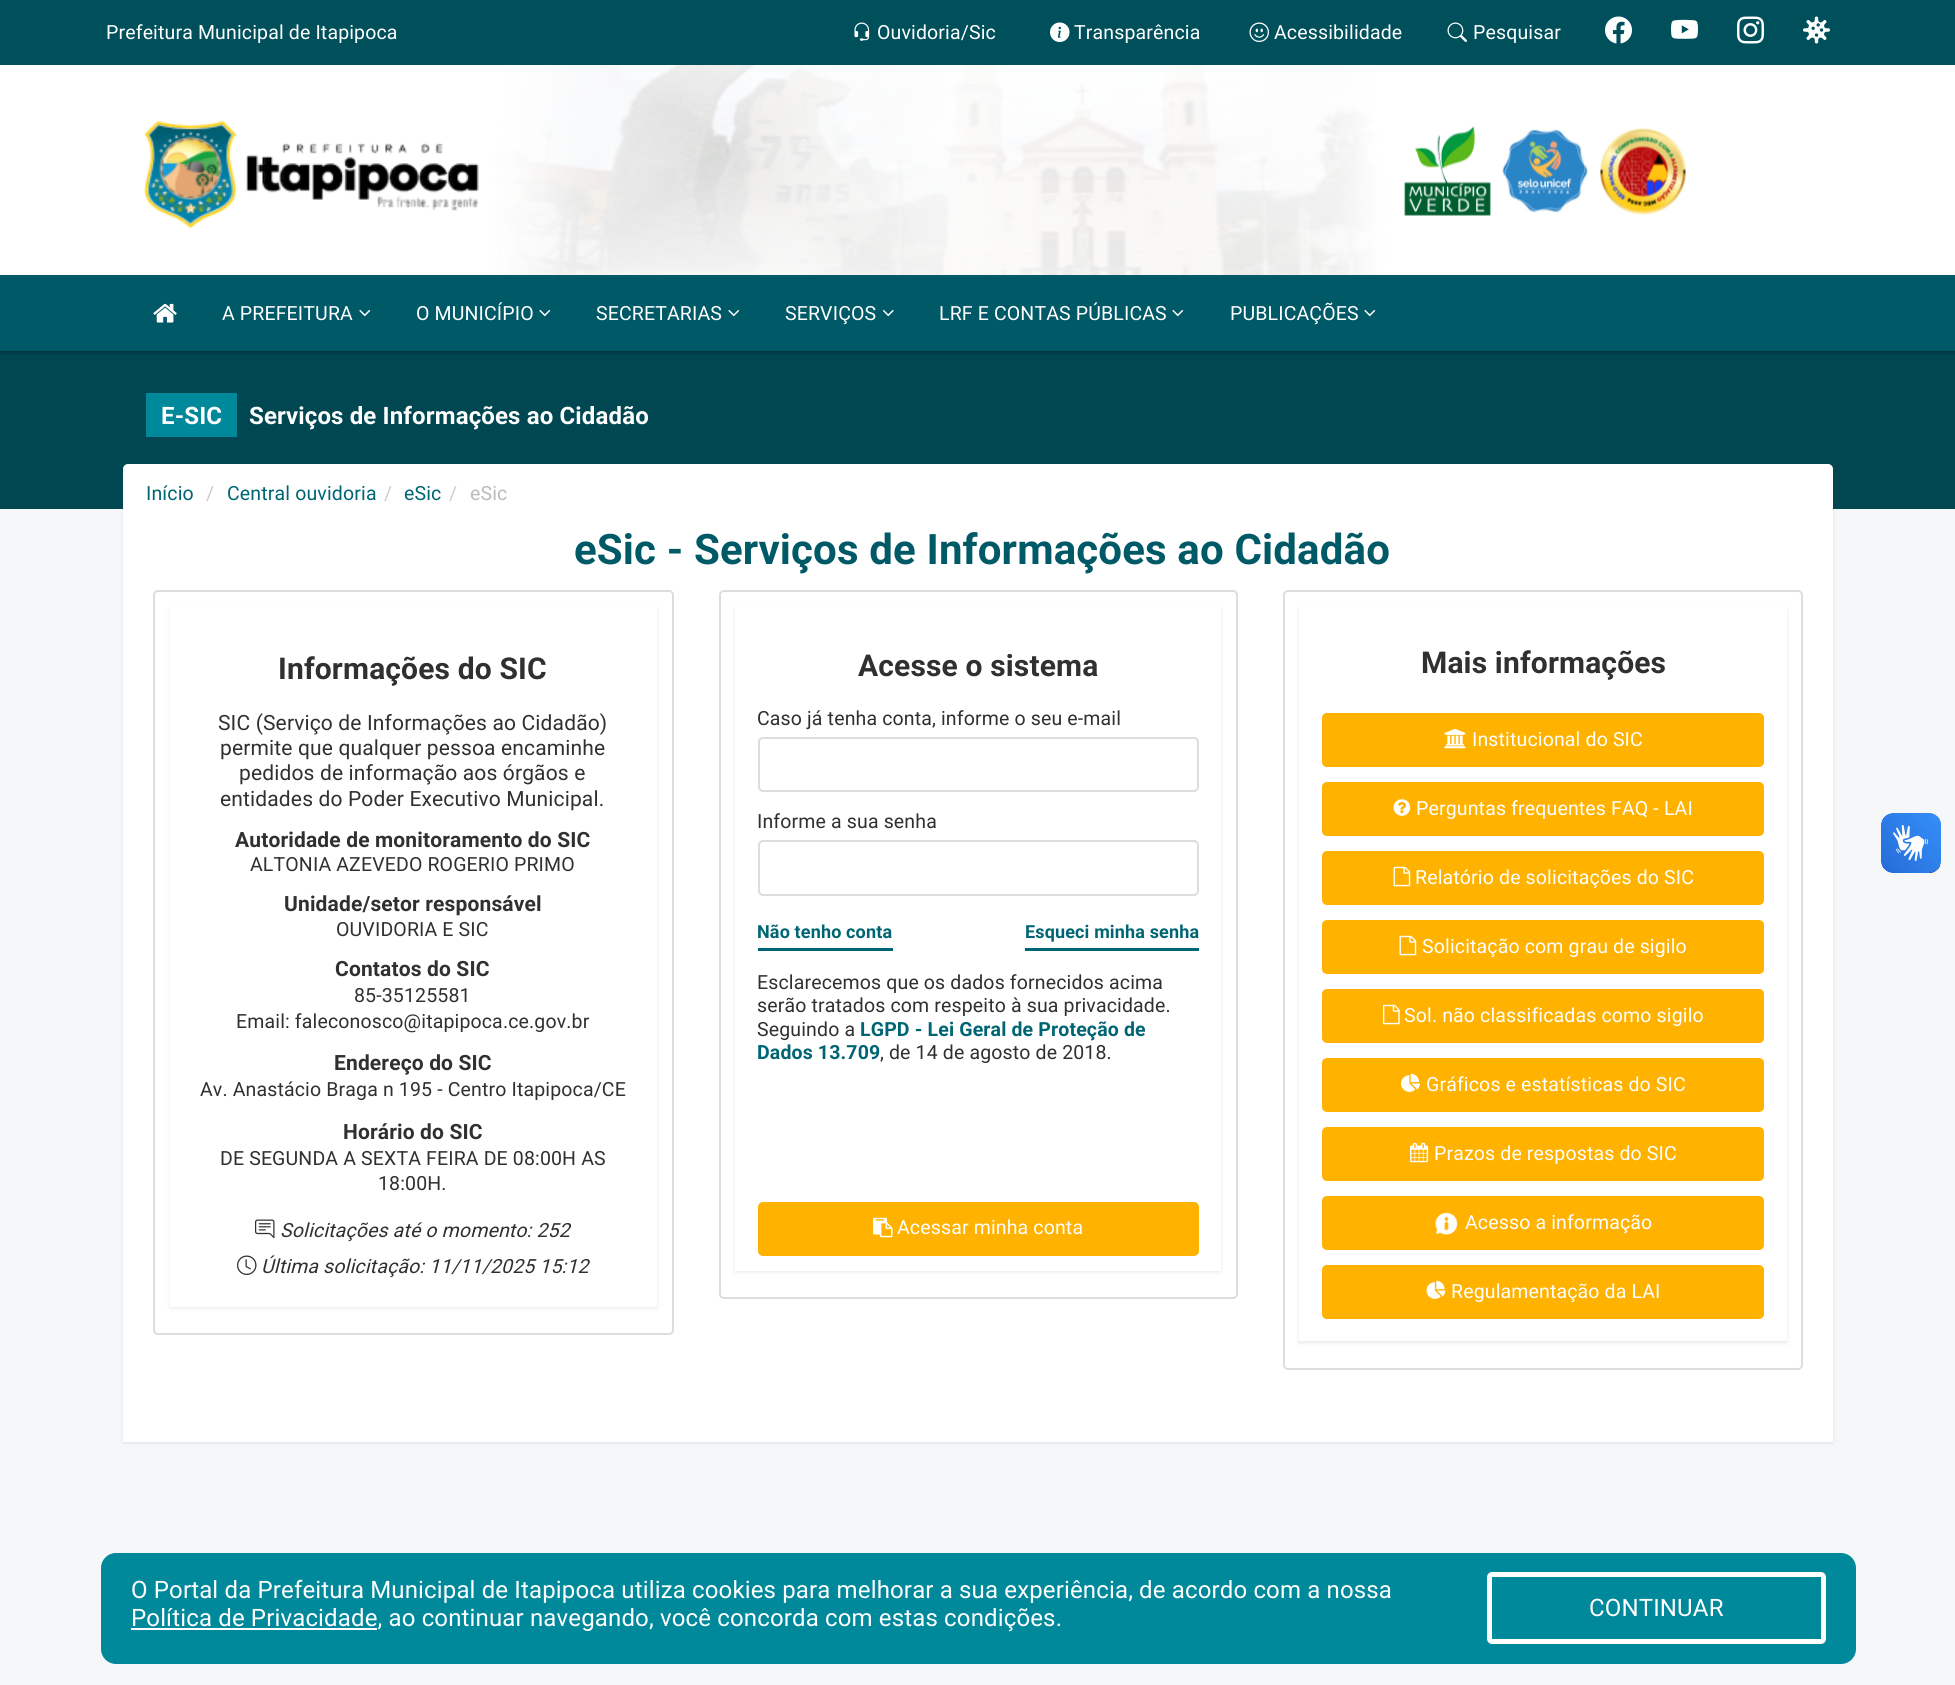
import math
import cairo

surface = cairo.ImageSurface(cairo.FORMAT_RGB24, 1955, 1685)
ctx = cairo.Context(surface)
options = cairo.FontOptions()
options.set_hint_metrics(cairo.HINT_METRICS_OFF)
options.set_hint_style(cairo.HINT_STYLE_NONE)
ctx.set_font_options(options)
ctx.set_miter_limit(4)


def set_color(code):
    ctx.set_source_rgb(*(v / 255 for v in bytes.fromhex(code[-6:])))


def draw_spaced(x, y, s, letter, word):
    ctx.move_to(x, y)
    for ch in s:
        ctx.show_text(ch)
        ctx.rel_move_to(letter + word * (ch == ' '), 0)


def fill_rect(x, y, w, h, color):
    set_color(color)
    ctx.rectangle(x, y, w, h)
    ctx.fill()


def rounded_rect(x, y, w, h, r):
    ctx.new_sub_path()
    for i, (u, v) in enumerate([(x + w - r, y + h - r), (x + r, y + h - r), (x + r, y + r), (x + w - r, y + r)]):
        ctx.arc(u, v, r, i * math.pi / 2, (i + 1) * math.pi / 2)
    ctx.close_path()


def draw_shadow(x, y, w, h, r, blur, alpha):
    ctx.push_group_with_content(cairo.CONTENT_ALPHA)
    ctx.set_operator(cairo.OPERATOR_SOURCE)
    for i in range(15, -16, -2):
        e = blur * i / 6
        if min(w, h) + 2 * e > 0:
            ctx.set_source_rgba(0, 0, 0, alpha * math.erfc((i - 1) / 8.5) / 2)
            rounded_rect(x - e, y - e, w + 2 * e, h + 2 * e, max(0, min(r + e + blur * .6, min(w, h) / 2 + e)))
            ctx.fill()
    ctx.mask(ctx.pop_group())


def draw_image(path, x, y, w, h):
    ctx.save()
    ctx.set_source_surface(cairo.ImageSurface.create_from_png(path), x, y)
    ctx.rectangle(x, y, w, h)
    ctx.fill()
    ctx.restore()


set_color("#f6f7f8")
ctx.paint()
set_color("#030047")
draw_shadow(123, 465, 1710, 978, 0, 2, 0.09)
fill_rect(0, 351, 1955, 158, "#004752")
set_color("#000000")
draw_shadow(0, 2, 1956, 351, 0, 1.5, 0.3)
draw_image("assets/img1.png", 0, 65, 1955, 210)
fill_rect(0, 0, 1955, 65, "#00505c")
ctx.select_font_face("Roboto")
ctx.set_font_size(19.5)
set_color("#ffffff")
draw_spaced(106, 39, "Prefeitura Municipal de Itapipoca", 0.15, 0)
draw_image("assets/img2.png", 854, 22, 16, 19)
draw_spaced(877, 39, "Ouvidoria/Sic", 0.15, 0)
draw_image("assets/img3.png", 1050, 22, 20, 20)
draw_spaced(1074, 39, "Transparência", 0.15, 0)
draw_image("assets/img4.png", 1249, 22, 20, 20)
draw_spaced(1274, 39, "Acessibilidade", 0.15, 0)
draw_image("assets/img5.png", 1447, 22, 20, 20)
draw_spaced(1473, 39, "Pesquisar", 0.15, 0)
draw_image("assets/img6.png", 1605, 16, 27, 28)
draw_image("assets/img7.png", 1671, 19, 27, 20)
draw_image("assets/img8.png", 1737, 16, 27, 28)
draw_image("assets/img9.png", 1803, 16, 27, 28)
draw_image("assets/img10.png", 143, 120, 336, 109)
draw_image("assets/img11.png", 1404, 126, 87, 90)
draw_image("assets/img12.png", 1502, 129, 86, 84)
draw_image("assets/img13.png", 1600, 128, 86, 87)
fill_rect(0, 275, 1955, 76, "#005966")
draw_image("assets/img14.png", 153, 303, 24, 20)
set_color("#ffffff")
draw_spaced(222, 320, "A PREFEITURA", 0.15, 0)
draw_image("assets/img15.png", 359, 309, 12, 8)
draw_spaced(416, 320, "O MUNICÍPIO", 0.15, 0)
draw_image("assets/img15.png", 539, 309, 12, 8)
draw_spaced(596, 320, "SECRETARIAS", 0.15, 0)
draw_image("assets/img15.png", 728, 309, 12, 8)
draw_spaced(785, 320, "SERVIÇOS", 0.15, 0)
draw_image("assets/img16.png", 882, 309, 12, 8)
draw_spaced(939, 320, "LRF E CONTAS PÚBLICAS", 0.15, 0)
draw_image("assets/img15.png", 1172, 309, 12, 8)
draw_spaced(1230, 320, "PUBLICAÇÕES", 0.15, 0)
draw_image("assets/img15.png", 1364, 309, 12, 8)
fill_rect(146, 393, 91, 44, "#00889b")
ctx.select_font_face("Roboto", cairo.FONT_SLANT_NORMAL, cairo.FONT_WEIGHT_BOLD)
ctx.set_font_size(24)
set_color("#ffffff")
draw_spaced(161, 424, "E-SIC", 0.15, 0)
draw_spaced(249, 424, "Serviços de Informações ao Cidadão", 0.15, 0)
fill_rect(123, 519, 1710, 923, "#ffffff")
rounded_rect(123, 464, 1710, 60, 5)
ctx.fill()
ctx.select_font_face("Roboto")
ctx.set_font_size(19.5)
set_color("#006573")
draw_spaced(146, 500, "Início", 0.15, 0)
set_color("#cccccc")
draw_spaced(206, 500, "/", 0.15, 0)
set_color("#006573")
draw_spaced(227, 500, "Central ouvidoria", 0.15, 0)
set_color("#cccccc")
draw_spaced(384, 500, "/", 0.15, 0)
set_color("#006573")
draw_spaced(404, 500, "eSic", 0.15, 0)
set_color("#cccccc")
draw_spaced(449, 500, "/", 0.15, 0)
set_color("#bbbbbb")
draw_spaced(470, 500, "eSic", 0.15, 0)
ctx.select_font_face("Roboto", cairo.FONT_SLANT_NORMAL, cairo.FONT_WEIGHT_BOLD)
ctx.set_font_size(42)
set_color("#005966")
draw_spaced(574, 564, "eSic - Serviços de Informações ao Cidadão", 0.15, 0)
rounded_rect(154, 591, 519, 743, 4)
set_color("#dddddd")
ctx.stroke()
set_color("#030047")
draw_shadow(170, 608, 487, 700, 0, 2, 0.09)
fill_rect(170, 606, 487, 701, "#ffffff")
ctx.set_font_size(30)
set_color("#303030")
draw_spaced(278, 679, "Informações do SIC", 0.15, 0)
ctx.select_font_face("Roboto")
ctx.set_font_size(21)
draw_spaced(218, 730, "SIC (Serviço de Informações ao Cidadão)", 0.15, 0)
draw_spaced(220, 755, "permite que qualquer pessoa encaminhe", 0.15, 0)
draw_spaced(239, 780, "pedidos de informação aos órgãos e", 0.15, 0)
draw_spaced(220, 806, "entidades do Poder Executivo Municipal.", 0.15, 0)
ctx.select_font_face("Roboto", cairo.FONT_SLANT_NORMAL, cairo.FONT_WEIGHT_BOLD)
draw_spaced(235, 847, "Autoridade de monitoramento do SIC", 0.15, 0)
ctx.select_font_face("Roboto")
ctx.set_font_size(19.5)
draw_spaced(250, 871, "ALTONIA AZEVEDO ROGERIO PRIMO", 0.15, 0)
ctx.select_font_face("Roboto", cairo.FONT_SLANT_NORMAL, cairo.FONT_WEIGHT_BOLD)
ctx.set_font_size(21)
draw_spaced(284, 911, "Unidade/setor responsável", 0.15, 0)
ctx.select_font_face("Roboto")
ctx.set_font_size(19.5)
draw_spaced(336, 936, "OUVIDORIA E SIC", 0.15, 0)
ctx.select_font_face("Roboto", cairo.FONT_SLANT_NORMAL, cairo.FONT_WEIGHT_BOLD)
ctx.set_font_size(21)
draw_spaced(335, 976, "Contatos do SIC", 0.15, 0)
ctx.select_font_face("Roboto")
ctx.set_font_size(19.5)
draw_spaced(354, 1002, "85-35125581", 0.15, 0)
draw_spaced(236, 1028, "Email: faleconosco@itapipoca.ce.gov.br", 0.15, 0)
ctx.select_font_face("Roboto", cairo.FONT_SLANT_NORMAL, cairo.FONT_WEIGHT_BOLD)
ctx.set_font_size(21)
draw_spaced(334, 1070, "Endereço do SIC", 0.15, 0)
ctx.select_font_face("Roboto")
ctx.set_font_size(19.5)
draw_spaced(200, 1096, "Av. Anastácio Braga n 195 - Centro Itapipoca/CE", 0.15, 0)
ctx.select_font_face("Roboto", cairo.FONT_SLANT_NORMAL, cairo.FONT_WEIGHT_BOLD)
ctx.set_font_size(21)
draw_spaced(343, 1139, "Horário do SIC", 0.15, 0)
ctx.select_font_face("Roboto")
ctx.set_font_size(19.5)
draw_spaced(220, 1165, "DE SEGUNDA A SEXTA FEIRA DE 08:00H AS", 0.15, 0)
draw_spaced(378, 1190, "18:00H.", 0.15, 0)
draw_image("assets/img17.png", 255, 1219, 20, 20)
ctx.select_font_face("Roboto", cairo.FONT_SLANT_ITALIC)
draw_spaced(280, 1237, "Solicitações até o momento: 252", 0.15, 0)
draw_image("assets/img18.png", 237, 1255, 20, 20)
draw_spaced(261, 1273, "Última solicitação: 11/11/2025 15:12", 0.15, 0)
rounded_rect(720, 591, 517, 707, 4)
set_color("#dddddd")
ctx.stroke()
set_color("#030047")
draw_shadow(735, 608, 486, 664, 0, 2, 0.09)
fill_rect(735, 606, 486, 665, "#ffffff")
ctx.select_font_face("Roboto", cairo.FONT_SLANT_NORMAL, cairo.FONT_WEIGHT_BOLD)
ctx.set_font_size(30)
set_color("#303030")
draw_spaced(858, 676, "Acesse o sistema", 0.15, 0)
ctx.select_font_face("Roboto")
ctx.set_font_size(19.5)
draw_spaced(757, 725, "Caso já tenha conta, informe o seu e-mail", 0.15, 0)
rounded_rect(759, 738, 439, 53, 4)
set_color("#dddddd")
ctx.stroke()
set_color("#303030")
draw_spaced(757, 828, "Informe a sua senha", 0.15, 0)
rounded_rect(759, 841, 439, 54, 4)
set_color("#dddddd")
ctx.stroke()
fill_rect(758, 948, 135, 3, "#006573")
ctx.select_font_face("Roboto", cairo.FONT_SLANT_NORMAL, cairo.FONT_WEIGHT_BOLD)
ctx.set_font_size(18)
draw_spaced(757, 938, "Não tenho conta", 0.15, 0)
fill_rect(1025, 948, 174, 3, "#006573")
draw_spaced(1025, 938, "Esqueci minha senha", 0.15, 0)
ctx.select_font_face("Roboto")
ctx.set_font_size(19.5)
set_color("#303030")
draw_spaced(757, 989, "Esclarecemos que os dados fornecidos acima", 0.15, 0)
draw_spaced(757, 1012, "serão tratados com respeito à sua privacidade.", 0.15, 0)
draw_spaced(757, 1036, "Seguindo a", 0.15, 0)
ctx.select_font_face("Roboto", cairo.FONT_SLANT_NORMAL, cairo.FONT_WEIGHT_BOLD)
set_color("#006573")
draw_spaced(860, 1036, "LGPD - Lei Geral de Proteção de", 0.15, 0)
draw_spaced(757, 1059, "Dados 13.709", 0.15, 0)
ctx.select_font_face("Roboto")
set_color("#303030")
draw_spaced(880, 1059, ", de 14 de agosto de 2018.", 0.15, 0)
set_color("#ffb200")
rounded_rect(758, 1202, 441, 54, 5)
ctx.fill()
draw_image("assets/img19.png", 873, 1217, 20, 21)
set_color("#ffffff")
draw_spaced(897, 1234, "Acessar minha conta", 0.15, 0)
rounded_rect(1284, 591, 518, 778, 4)
set_color("#dddddd")
ctx.stroke()
set_color("#030047")
draw_shadow(1299, 608, 488, 735, 0, 2, 0.09)
fill_rect(1299, 606, 488, 735, "#ffffff")
ctx.select_font_face("Roboto", cairo.FONT_SLANT_NORMAL, cairo.FONT_WEIGHT_BOLD)
ctx.set_font_size(30)
set_color("#303030")
draw_spaced(1421, 673, "Mais informações", 0.15, 0)
set_color("#ffb200")
rounded_rect(1322, 713, 442, 54, 5)
ctx.fill()
draw_image("assets/img20.png", 1444, 728, 22, 21)
ctx.select_font_face("Roboto")
ctx.set_font_size(19.5)
set_color("#ffffff")
draw_spaced(1472, 746, "Institucional do SIC", 0.15, 0)
set_color("#ffb200")
rounded_rect(1322, 782, 442, 54, 5)
ctx.fill()
draw_image("assets/img21.png", 1393, 799, 18, 17)
set_color("#ffffff")
draw_spaced(1416, 815, "Perguntas frequentes FAQ - LAI", 0.15, 0)
set_color("#ffb200")
rounded_rect(1322, 851, 442, 54, 5)
ctx.fill()
draw_image("assets/img22.png", 1393, 866, 18, 21)
set_color("#ffffff")
draw_spaced(1415, 884, "Relatório de solicitações do SIC", 0.15, 0)
set_color("#ffb200")
rounded_rect(1322, 920, 442, 54, 5)
ctx.fill()
draw_image("assets/img22.png", 1399, 935, 18, 21)
set_color("#ffffff")
draw_spaced(1422, 953, "Solicitação com grau de sigilo", 0.15, 0)
set_color("#ffb200")
rounded_rect(1322, 989, 442, 54, 5)
ctx.fill()
draw_image("assets/img23.png", 1383, 1004, 17, 21)
set_color("#ffffff")
draw_spaced(1404, 1022, "Sol. não classificadas como sigilo", 0.15, 0)
set_color("#ffb200")
rounded_rect(1322, 1058, 442, 54, 5)
ctx.fill()
draw_image("assets/img24.png", 1401, 1073, 19, 19)
set_color("#ffffff")
draw_spaced(1426, 1091, "Gráficos e estatísticas do SIC", 0.15, 0)
set_color("#ffb200")
rounded_rect(1322, 1127, 442, 54, 5)
ctx.fill()
draw_image("assets/img25.png", 1410, 1142, 19, 21)
set_color("#ffffff")
draw_spaced(1434, 1160, "Prazos de respostas do SIC", 0.15, 0)
set_color("#ffb200")
rounded_rect(1322, 1196, 442, 54, 5)
ctx.fill()
draw_image("assets/img26.png", 1435, 1213, 23, 22)
set_color("#ffffff")
draw_spaced(1465, 1229, "Acesso a informação", 0.15, 0)
set_color("#ffb200")
rounded_rect(1322, 1265, 442, 54, 5)
ctx.fill()
draw_image("assets/img27.png", 1426, 1280, 20, 19)
set_color("#ffffff")
draw_spaced(1451, 1298, "Regulamentação da LAI", 0.15, 0)
draw_image("assets/img28.png", 1881, 813, 60, 60)
draw_image("assets/img29.png", 1881, 813, 60, 60)
set_color("#00889b")
rounded_rect(101, 1553, 1755, 111, 15)
ctx.fill()
ctx.set_font_size(24)
set_color("#ffffff")
draw_spaced(131, 1598, "O Portal da Prefeitura Municipal de Itapipoca utiliza cookies para melhorar a sua experiência, de acordo com a nossa", 0.15, 0)
fill_rect(131, 1628, 246, 2, "#ffffff")
draw_spaced(131, 1626, "Política de Privacidade, ao continuar navegando, você concorda com estas condições.", 0.15, 0)
rounded_rect(1489.5, 1574.5, 334, 67, 2.5)
ctx.set_line_width(5)
ctx.stroke()
draw_spaced(1589, 1616, "CONTINUAR", 0.15, 0)
surface.write_to_png("output.png")
